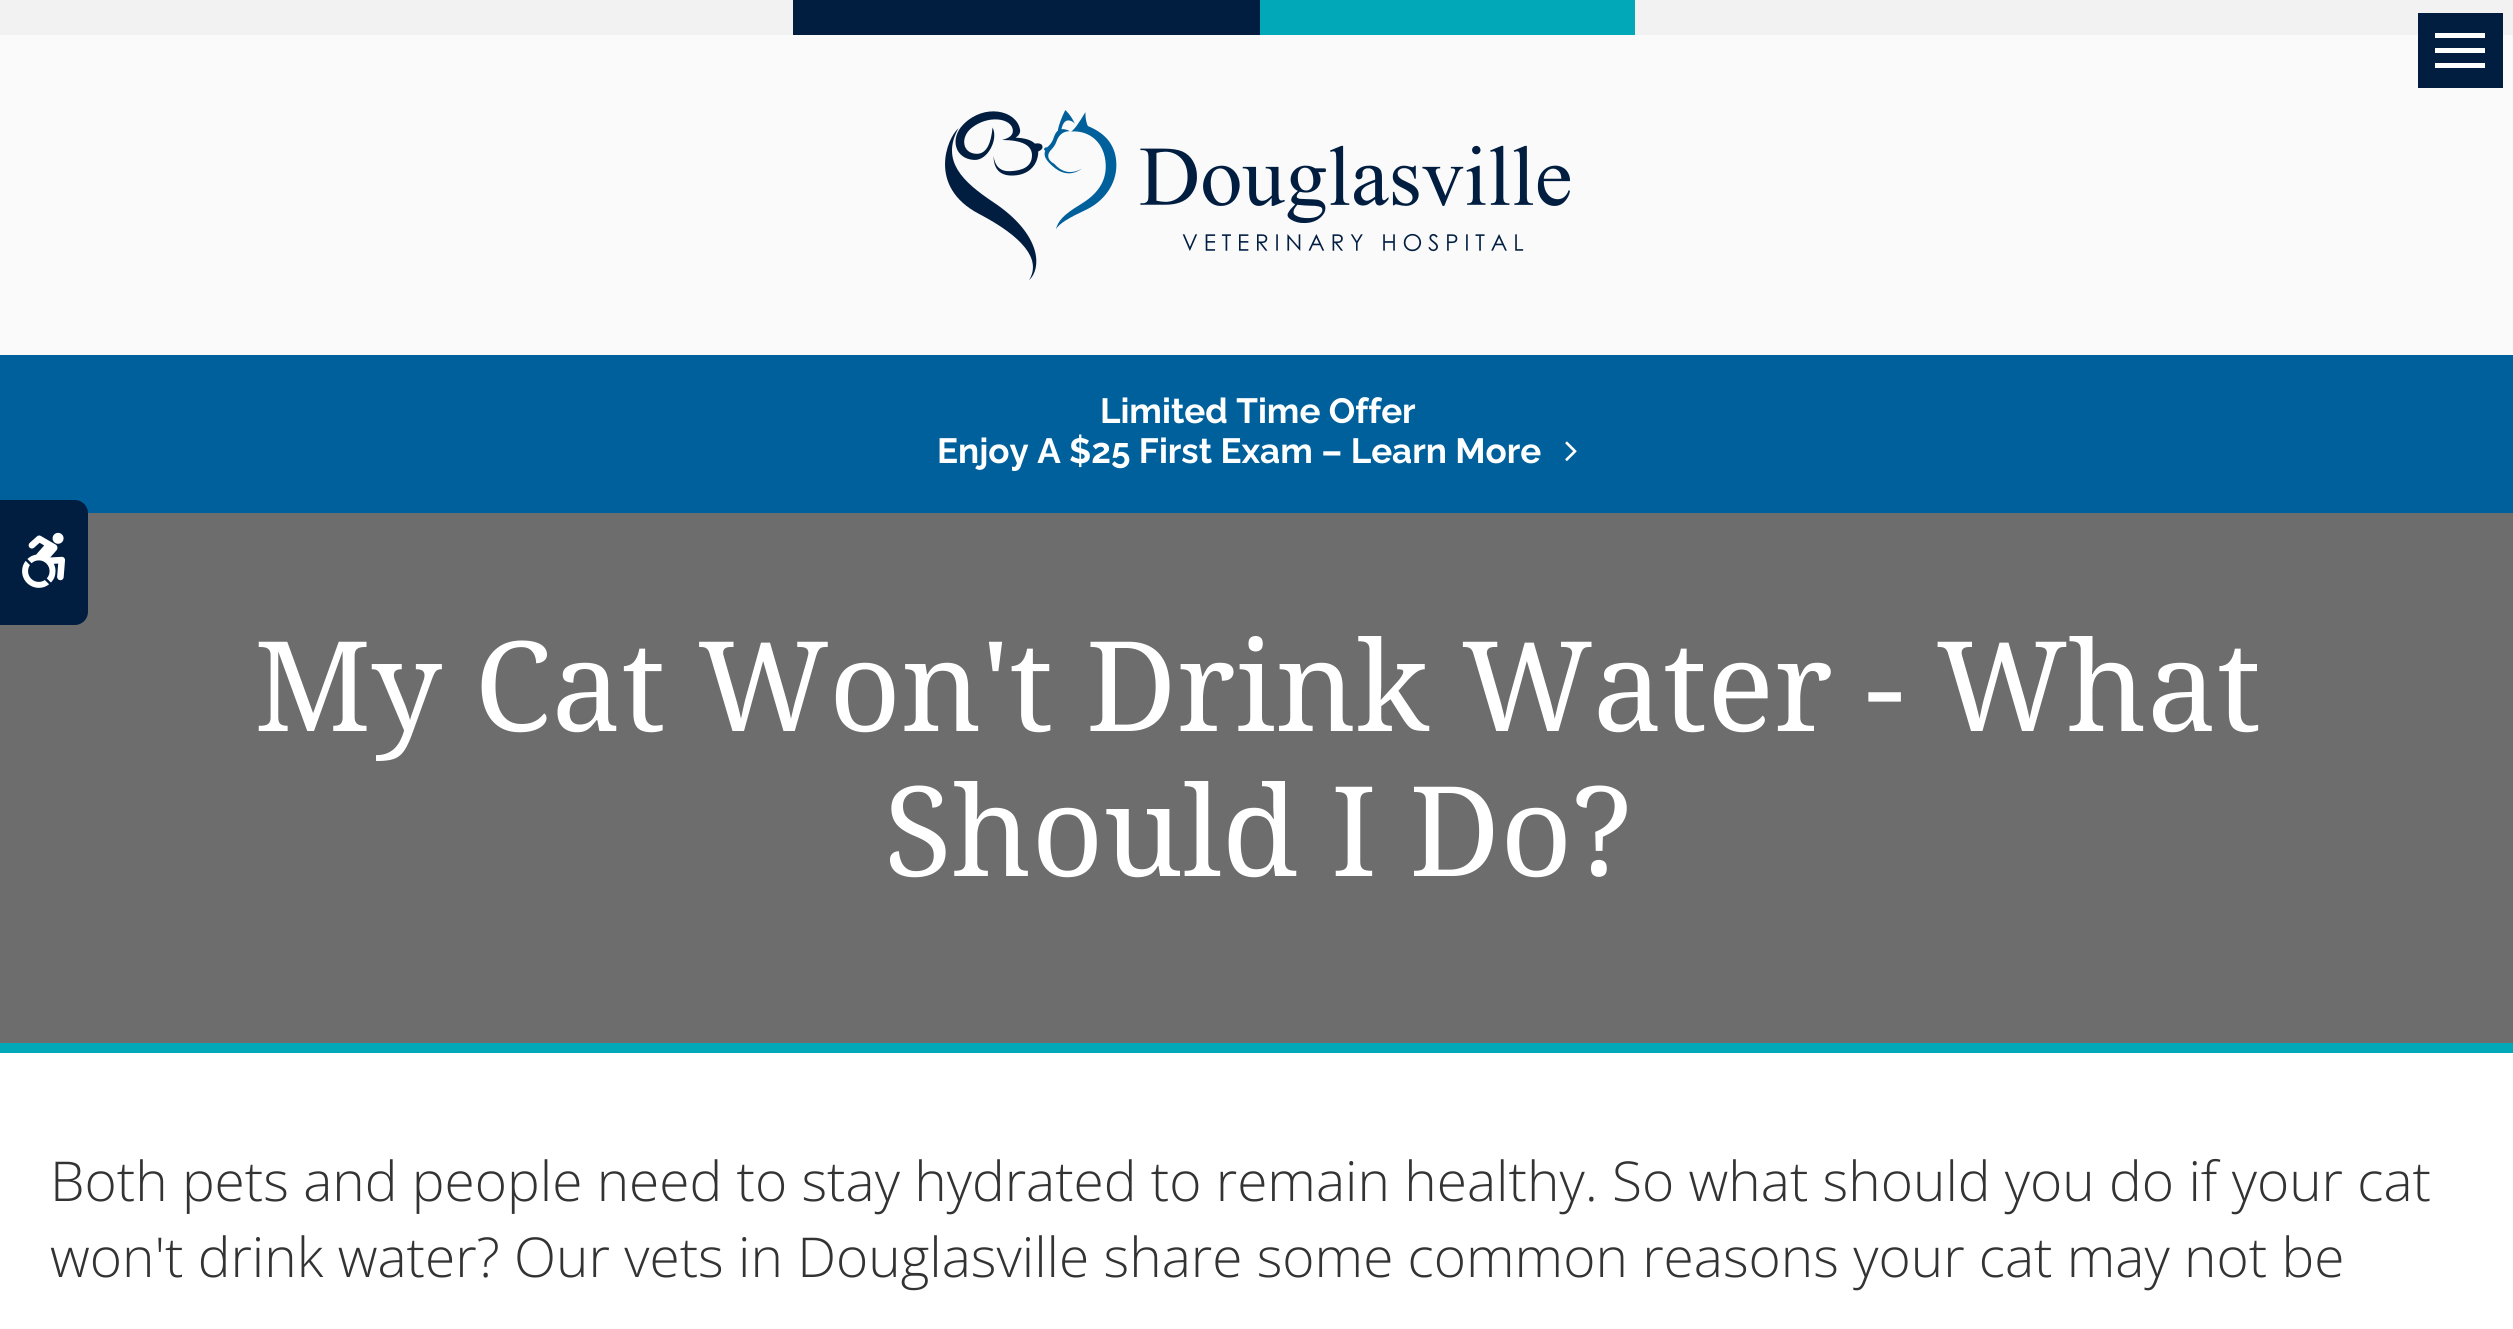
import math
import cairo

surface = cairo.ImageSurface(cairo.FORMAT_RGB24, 2513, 1329)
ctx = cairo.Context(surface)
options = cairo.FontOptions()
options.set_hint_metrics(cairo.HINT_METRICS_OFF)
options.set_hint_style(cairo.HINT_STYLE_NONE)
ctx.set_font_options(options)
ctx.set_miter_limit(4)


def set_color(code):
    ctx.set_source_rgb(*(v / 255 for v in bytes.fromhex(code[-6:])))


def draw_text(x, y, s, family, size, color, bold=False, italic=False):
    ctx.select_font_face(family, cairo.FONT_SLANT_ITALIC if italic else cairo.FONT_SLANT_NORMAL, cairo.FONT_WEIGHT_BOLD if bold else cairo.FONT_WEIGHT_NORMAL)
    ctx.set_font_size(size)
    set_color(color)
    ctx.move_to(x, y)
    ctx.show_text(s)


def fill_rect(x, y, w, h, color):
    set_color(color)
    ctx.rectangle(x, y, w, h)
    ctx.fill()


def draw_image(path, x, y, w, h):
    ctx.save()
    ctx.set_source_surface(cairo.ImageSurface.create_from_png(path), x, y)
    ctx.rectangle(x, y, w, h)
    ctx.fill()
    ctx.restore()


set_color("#00609c")
ctx.paint()
fill_rect(0, 35, 2513, 320, "#fafafa")
fill_rect(0, 0, 2513, 35, "#f2f2f2")
fill_rect(2418, 13, 85, 75, "#011e41")
fill_rect(2435, 33, 50, 5, "#ffffff")
fill_rect(2435, 48, 50, 5, "#ffffff")
fill_rect(2435, 63, 50, 5, "#ffffff")
fill_rect(793, 0, 467, 35, "#011e41")
fill_rect(1260, 0, 375, 35, "#00a8b8")
draw_image("assets/img1.png", 945, 110, 625, 170)
draw_text(1100, 423, "Limited Time Offer", "Raleway", 35, "#ffffff", bold=True)
draw_text(937, 463, "Enjoy A $25 First Exam – Learn More", "Raleway", 35, "#ffffff", bold=True)
draw_image("assets/img2.png", 1565, 441, 12, 20)
fill_rect(0, 513, 2513, 530, "#6d6d6d")
set_color("#011e41")
ctx.new_path()
ctx.move_to(0, 500)
ctx.line_to(75, 500)
ctx.curve_to(82, 500, 88, 506, 88, 513)
ctx.line_to(88, 612)
ctx.curve_to(88, 619, 82, 625, 75, 625)
ctx.line_to(0, 625)
ctx.close_path()
ctx.fill()
draw_image("assets/img3.png", 22, 532, 43, 56)
fill_rect(0, 1043, 2513, 10, "#00a8b8")
draw_text(254, 731, "My Cat Won't Drink Water - What", "Noto Serif", 125, "#ffffff")
draw_text(884, 876, "Should I Do?", "Noto Serif", 125, "#ffffff")
fill_rect(0, 1053, 2513, 276, "#ffffff")
draw_text(50, 1201, "Both pets and people need to stay hydrated to remain healthy. So what should you do if your cat", "Open Sans Light", 55, "#333333")
draw_text(50, 1277, "won't drink water? Our vets in Douglasville share some common reasons your cat may not be", "Open Sans Light", 55, "#333333")
surface.write_to_png("output.png")
